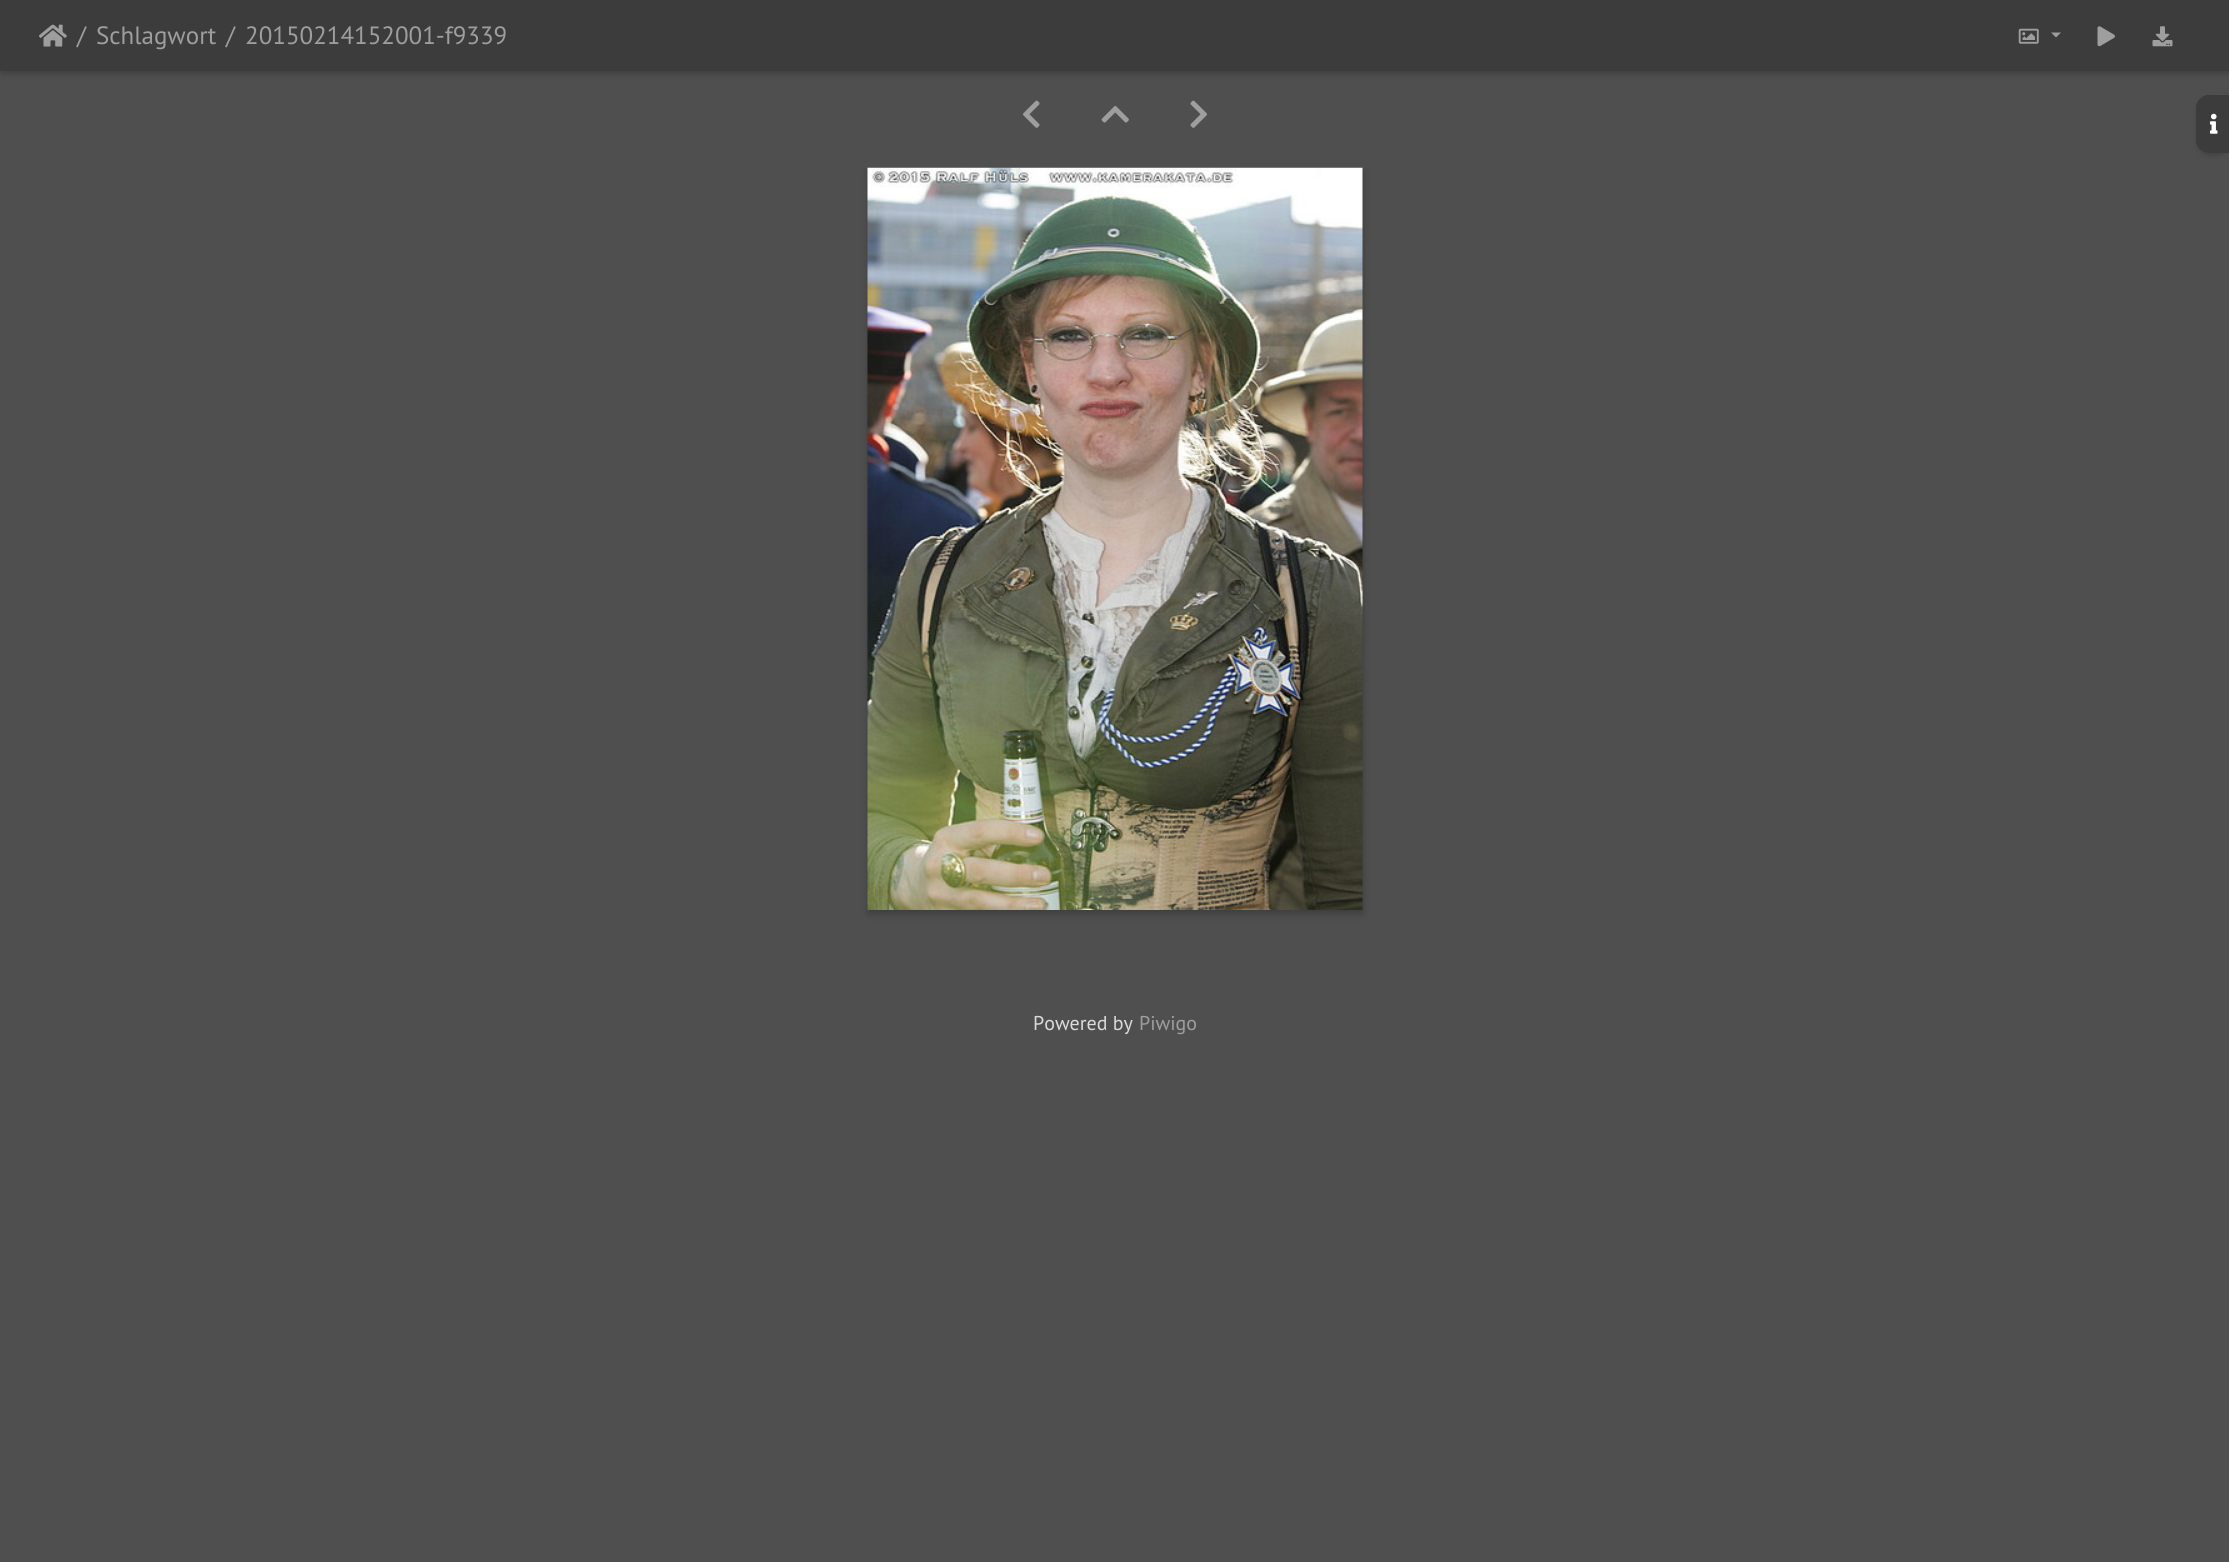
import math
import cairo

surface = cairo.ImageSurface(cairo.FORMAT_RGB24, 2229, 1562)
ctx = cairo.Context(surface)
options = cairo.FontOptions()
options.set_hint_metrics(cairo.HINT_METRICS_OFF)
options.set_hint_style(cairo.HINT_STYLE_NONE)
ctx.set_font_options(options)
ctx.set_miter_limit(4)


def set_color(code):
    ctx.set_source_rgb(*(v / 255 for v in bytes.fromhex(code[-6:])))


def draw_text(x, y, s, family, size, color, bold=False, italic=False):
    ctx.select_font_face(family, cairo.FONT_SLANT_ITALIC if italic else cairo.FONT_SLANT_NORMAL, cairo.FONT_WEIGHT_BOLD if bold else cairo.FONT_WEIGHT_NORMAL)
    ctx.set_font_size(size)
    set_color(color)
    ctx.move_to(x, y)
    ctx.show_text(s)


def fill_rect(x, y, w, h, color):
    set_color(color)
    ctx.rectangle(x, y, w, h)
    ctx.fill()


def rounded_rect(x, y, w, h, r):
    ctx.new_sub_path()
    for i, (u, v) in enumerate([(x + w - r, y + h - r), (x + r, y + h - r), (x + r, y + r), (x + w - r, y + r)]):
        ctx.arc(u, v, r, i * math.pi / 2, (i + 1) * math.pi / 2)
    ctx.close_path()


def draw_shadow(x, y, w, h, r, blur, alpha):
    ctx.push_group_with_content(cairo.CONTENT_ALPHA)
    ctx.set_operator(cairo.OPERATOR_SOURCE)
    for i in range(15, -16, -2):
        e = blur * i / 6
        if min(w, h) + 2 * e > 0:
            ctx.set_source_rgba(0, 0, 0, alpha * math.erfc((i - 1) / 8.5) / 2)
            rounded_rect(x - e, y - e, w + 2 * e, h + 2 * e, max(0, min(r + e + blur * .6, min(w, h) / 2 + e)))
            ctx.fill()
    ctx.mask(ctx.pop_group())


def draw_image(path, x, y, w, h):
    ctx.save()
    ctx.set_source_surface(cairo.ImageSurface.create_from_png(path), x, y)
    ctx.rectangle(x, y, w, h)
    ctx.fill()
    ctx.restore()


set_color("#4f4f4f")
ctx.paint()
set_color("#000000")
draw_shadow(1, 5, 2228, 69, 0, 3, 0.2)
fill_rect(0, 0, 2229, 71, "#3c3c3c")
draw_image("assets/img1.png", 39, 24, 28, 23)
draw_text(77, 44, "/", "PT Sans", 25, "#9e9e9e")
draw_text(96, 44, "Schlagwort", "PT Sans", 25, "#9e9e9e")
draw_text(226, 44, "/", "PT Sans", 25, "#9e9e9e")
draw_text(245, 44, "20150214152001-f9339", "PT Sans", 25, "#9e9e9e")
draw_image("assets/img2.png", 2018, 28, 21, 16)
ctx.new_path()
ctx.move_to(2051, 32.5)
ctx.line_to(2061, 32.5)
ctx.line_to(2056, 37.5)
ctx.close_path()
ctx.fill()
draw_image("assets/img3.png", 2097, 26, 18, 21)
draw_image("assets/img4.png", 2152, 26, 21, 21)
draw_image("assets/img5.png", 1023, 100, 17, 28)
draw_image("assets/img6.png", 1101, 106, 28, 17)
draw_image("assets/img7.png", 1190, 100, 17, 28)
set_color("#000000")
draw_shadow(2198, 100, 31, 55, 11, 3, 0.2)
set_color("#3c3c3c")
ctx.new_path()
ctx.move_to(2209, 95)
ctx.line_to(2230, 95)
ctx.line_to(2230, 153)
ctx.line_to(2209, 153)
ctx.curve_to(2202, 153, 2196, 147, 2196, 140)
ctx.line_to(2196, 108)
ctx.curve_to(2196, 101, 2202, 95, 2209, 95)
ctx.close_path()
ctx.fill()
ctx.set_fill_rule(cairo.FILL_RULE_EVEN_ODD)
ctx.new_path()
ctx.move_to(2209, 95)
ctx.line_to(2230, 95)
ctx.line_to(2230, 152)
ctx.line_to(2209, 152)
ctx.curve_to(2202, 152, 2196, 147, 2196, 140)
ctx.line_to(2196, 108)
ctx.curve_to(2196, 101, 2202, 95, 2209, 95)
ctx.close_path()
ctx.move_to(2209, 96)
ctx.line_to(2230, 96)
ctx.line_to(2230, 151)
ctx.line_to(2209, 151)
ctx.curve_to(2203, 151, 2198, 146, 2198, 140)
ctx.line_to(2198, 108)
ctx.curve_to(2198, 101, 2203, 96, 2209, 96)
ctx.close_path()
ctx.fill()
draw_image("assets/img8.png", 2210, 113, 8, 21)
ctx.save()
ctx.set_fill_rule(cairo.FILL_RULE_WINDING)
ctx.rectangle(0, 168, 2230, 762)
ctx.clip()
set_color("#000000")
draw_shadow(868, 171, 495, 743, 0, 4, 0.23)
ctx.restore()
draw_image("assets/img9.png", 867, 167, 496, 743)
draw_text(1033, 1030, "Powered by", "PT Sans", 20, "#dbdbdb")
draw_text(1139, 1030, "Piwigo", "PT Sans", 20, "#9e9e9e")
surface.write_to_png("output.png")
